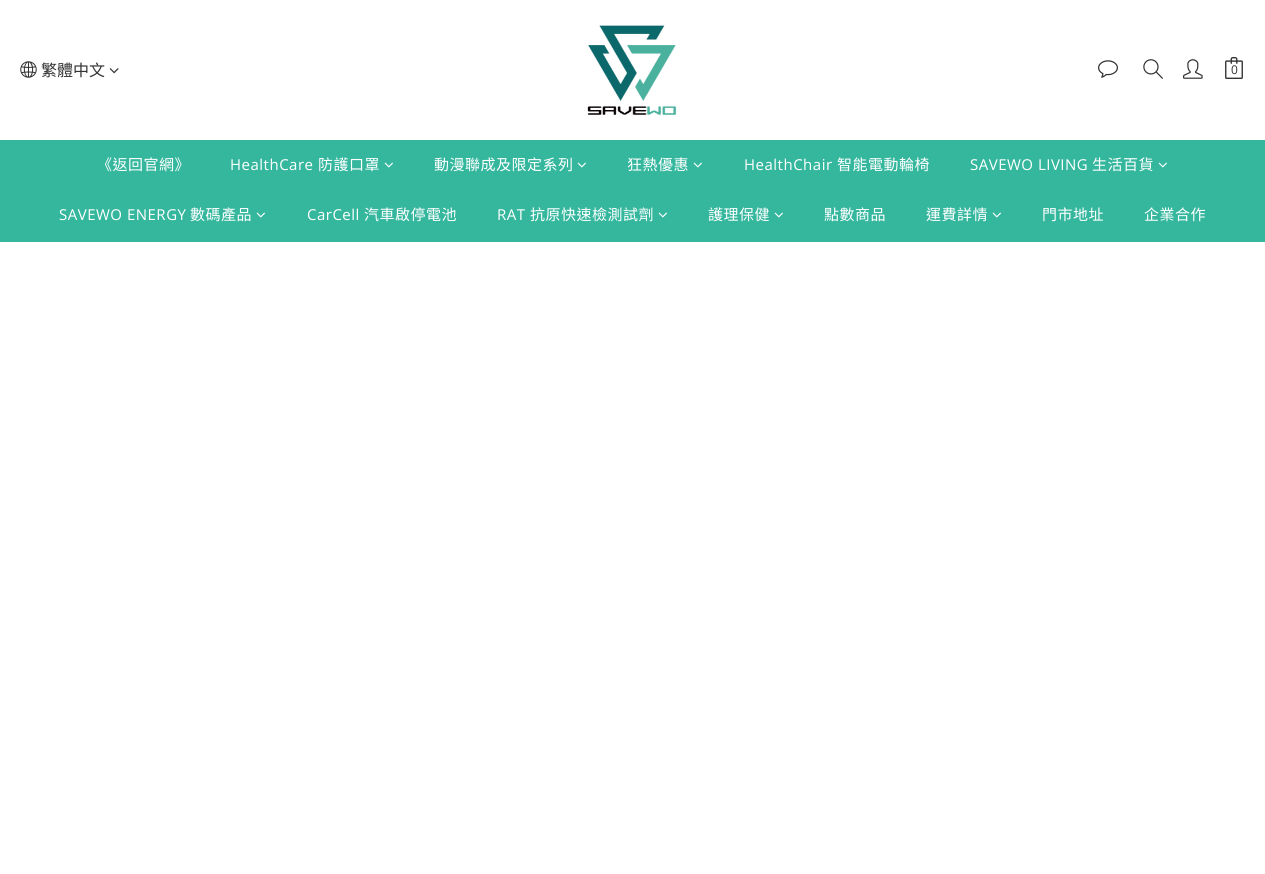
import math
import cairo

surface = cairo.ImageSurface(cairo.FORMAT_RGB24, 1265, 874)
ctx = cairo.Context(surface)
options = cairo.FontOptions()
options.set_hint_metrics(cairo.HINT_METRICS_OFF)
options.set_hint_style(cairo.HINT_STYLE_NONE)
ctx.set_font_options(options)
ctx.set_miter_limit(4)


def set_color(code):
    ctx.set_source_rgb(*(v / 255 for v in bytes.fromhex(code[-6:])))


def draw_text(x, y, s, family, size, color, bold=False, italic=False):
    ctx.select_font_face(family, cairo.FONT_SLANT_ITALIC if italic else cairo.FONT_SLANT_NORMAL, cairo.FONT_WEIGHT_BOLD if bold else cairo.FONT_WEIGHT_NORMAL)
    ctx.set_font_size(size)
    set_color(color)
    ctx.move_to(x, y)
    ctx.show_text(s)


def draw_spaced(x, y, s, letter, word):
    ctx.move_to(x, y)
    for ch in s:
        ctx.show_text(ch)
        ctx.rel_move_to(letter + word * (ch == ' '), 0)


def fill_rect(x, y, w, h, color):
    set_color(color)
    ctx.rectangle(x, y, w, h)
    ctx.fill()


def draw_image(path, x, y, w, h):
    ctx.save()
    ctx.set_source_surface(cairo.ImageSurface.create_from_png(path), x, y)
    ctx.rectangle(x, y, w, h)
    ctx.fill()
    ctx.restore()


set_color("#ffffff")
ctx.paint()
draw_image("assets/img1.png", 20, 61, 17, 17)
draw_text(41, 76, "繁體中文", "Noto Sans TC", 16, "#333333")
draw_image("assets/img2.png", 109, 68, 10, 6)
draw_image("assets/img3.png", 587, 25, 90, 90)
draw_image("assets/img4.png", 1098, 60, 20, 18)
draw_image("assets/img5.png", 1143, 59, 20, 20)
draw_image("assets/img6.png", 1183, 59, 20, 20)
draw_image("assets/img7.png", 1225, 57, 18, 22)
draw_text(1231, 74, "0", "Open Sans", 12, "#333333")
fill_rect(0, 140, 1265, 102, "#35b79e")
ctx.select_font_face("Noto Sans TC")
ctx.set_font_size(15)
set_color("#ffffff")
draw_spaced(97, 170, "《返回官網》", 0.5, 0)
ctx.select_font_face("Open Sans")
draw_spaced(230, 170, "HealthCare", 0.5, 0)
ctx.select_font_face("Noto Sans TC")
draw_spaced(318, 170, "防護口罩", 0.5, 0)
draw_image("assets/img8.png", 384, 162, 9, 6)
draw_spaced(434, 170, "動漫聯成及限定系列", 0.5, 0)
draw_image("assets/img8.png", 577, 162, 9, 6)
draw_spaced(627, 170, "狂熱優惠", 0.5, 0)
draw_image("assets/img8.png", 693, 162, 9, 6)
ctx.select_font_face("Open Sans")
draw_spaced(744, 170, "HealthChair", 0.5, 0)
ctx.select_font_face("Noto Sans TC")
draw_spaced(837, 170, "智能電動輪椅", 0.5, 0)
ctx.select_font_face("Open Sans")
draw_spaced(970, 170, "SAVEWO LIVING", 0.5, 0)
ctx.select_font_face("Noto Sans TC")
draw_spaced(1092, 170, "生活百貨", 0.5, 0)
draw_image("assets/img8.png", 1158, 162, 9, 6)
ctx.select_font_face("Open Sans")
draw_spaced(59, 220, "SAVEWO ENERGY", 0.5, 0)
ctx.select_font_face("Noto Sans TC")
draw_spaced(190, 220, "數碼產品", 0.5, 0)
draw_image("assets/img8.png", 256, 212, 9, 6)
ctx.select_font_face("Open Sans")
draw_spaced(307, 220, "CarCell", 0.5, 0)
ctx.select_font_face("Noto Sans TC")
draw_spaced(364, 220, "汽車啟停電池", 0.5, 0)
ctx.select_font_face("Open Sans")
draw_spaced(497, 220, "RAT", 0.5, 0)
ctx.select_font_face("Noto Sans TC")
draw_spaced(530, 220, "抗原快速檢測試劑", 0.5, 0)
draw_image("assets/img8.png", 658, 212, 9, 6)
draw_spaced(708, 220, "護理保健", 0.5, 0)
draw_image("assets/img8.png", 774, 212, 9, 6)
draw_spaced(824, 220, "點數商品", 0.5, 0)
draw_spaced(926, 220, "運費詳情", 0.5, 0)
draw_image("assets/img8.png", 992, 212, 9, 6)
draw_spaced(1042, 220, "門市地址", 0.5, 0)
draw_spaced(1144, 220, "企業合作", 0.5, 0)
surface.write_to_png("output.png")
